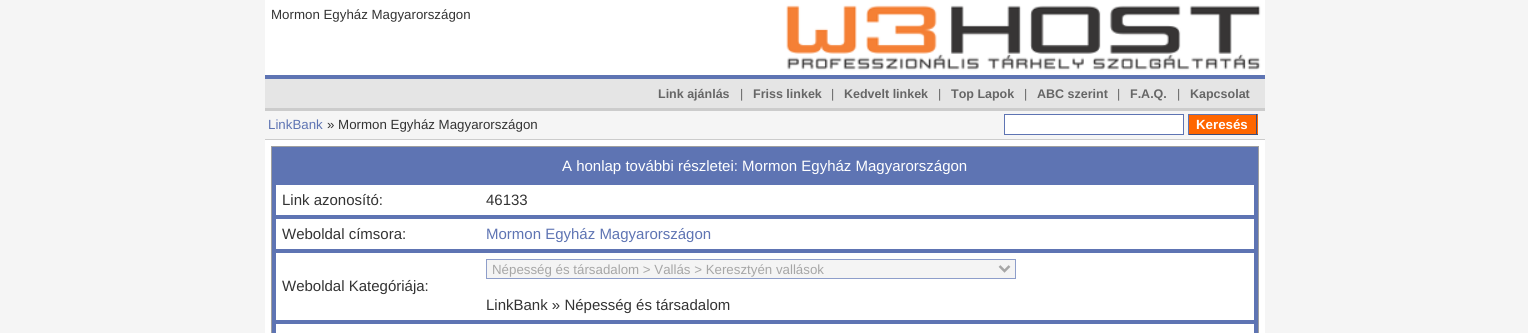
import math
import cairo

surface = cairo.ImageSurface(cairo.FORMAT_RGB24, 1528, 333)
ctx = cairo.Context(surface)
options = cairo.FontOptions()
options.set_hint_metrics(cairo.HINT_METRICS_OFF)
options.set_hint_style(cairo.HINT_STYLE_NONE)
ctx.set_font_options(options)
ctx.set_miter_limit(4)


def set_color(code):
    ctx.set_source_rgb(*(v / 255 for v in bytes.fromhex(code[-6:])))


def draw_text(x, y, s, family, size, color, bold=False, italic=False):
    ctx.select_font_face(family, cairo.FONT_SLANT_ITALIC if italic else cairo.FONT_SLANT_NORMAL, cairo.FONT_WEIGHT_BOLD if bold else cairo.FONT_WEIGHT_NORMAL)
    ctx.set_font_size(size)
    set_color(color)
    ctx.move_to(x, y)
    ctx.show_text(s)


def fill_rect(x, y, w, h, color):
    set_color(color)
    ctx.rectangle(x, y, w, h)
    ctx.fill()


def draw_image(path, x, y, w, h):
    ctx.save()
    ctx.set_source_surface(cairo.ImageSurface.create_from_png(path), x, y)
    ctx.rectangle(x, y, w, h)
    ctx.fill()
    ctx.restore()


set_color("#f5f5f5")
ctx.paint()
fill_rect(265, 0, 1000, 333, "#ffffff")
draw_text(271, 19, "Mormon Egyház Magyarországon", "Liberation Sans", 13.3, "#333333")
draw_image("assets/img1.png", 786, 0, 479, 75)
fill_rect(265, 79, 1000, 29, "#e5e5e5")
fill_rect(265, 75, 1000, 4, "#5e74b3")
draw_text(658, 98, "Link ajánlás", "Liberation Sans", 12.5, "#666666", bold=True)
draw_text(740, 98, "|", "Liberation Sans", 12.5, "#666666")
draw_text(753, 98, "Friss linkek", "Liberation Sans", 12.5, "#666666", bold=True)
draw_text(831, 98, "|", "Liberation Sans", 12.5, "#666666")
draw_text(844, 98, "Kedvelt linkek", "Liberation Sans", 12.5, "#666666", bold=True)
draw_text(938, 98, "|", "Liberation Sans", 12.5, "#666666")
draw_text(951, 98, "Top Lapok", "Liberation Sans", 12.5, "#666666", bold=True)
draw_text(1024, 98, "|", "Liberation Sans", 12.5, "#666666")
draw_text(1037, 98, "ABC szerint", "Liberation Sans", 12.5, "#666666", bold=True)
draw_text(1117, 98, "|", "Liberation Sans", 12.5, "#666666")
draw_text(1130, 98, "F.A.Q.", "Liberation Sans", 12.5, "#666666", bold=True)
draw_text(1177, 98, "|", "Liberation Sans", 12.5, "#666666")
draw_text(1190, 98, "Kapcsolat", "Liberation Sans", 12.5, "#666666", bold=True)
fill_rect(265, 111, 1000, 28, "#f5f5f5")
fill_rect(265, 108, 1000, 3, "#cccccc")
fill_rect(265, 139, 1000, 1, "#cccccc")
draw_text(268, 129, "LinkBank", "Liberation Sans", 13.3, "#5e74b3")
draw_text(327, 129, "» Mormon Egyház Magyarországon", "Liberation Sans", 13.3, "#333333")
set_color("#ffffff")
ctx.rectangle(1004.5, 114.5, 179, 20)
ctx.fill_preserve()
set_color("#5e74b3")
ctx.set_line_width(1)
ctx.stroke()
fill_rect(1189, 115, 69, 19, "#ff6600")
fill_rect(1188, 114, 70, 1, "#5e74b3")
fill_rect(1256, 114, 1, 21, "#3f4d77")
fill_rect(1188, 134, 70, 1, "#3f4d77")
fill_rect(1188, 114, 1, 21, "#5e74b3")
draw_text(1196, 129, "Keresés", "Liberation Sans", 13.3, "#ffffff", bold=True)
set_color("#5e74b3")
ctx.rectangle(271.5, 146.5, 987, 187)
ctx.fill_preserve()
set_color("#a0a0a0")
ctx.stroke()
draw_text(562, 171, "A honlap további részletei: Mormon Egyház Magyarországon", "Liberation Sans", 15, "#ffffff")
fill_rect(276, 185, 978, 30, "#ffffff")
draw_text(282, 205, "Link azonosító:", "Liberation Sans", 15, "#333333")
draw_text(486, 205, "46133", "Liberation Sans", 15, "#333333")
fill_rect(276, 219, 978, 30, "#ffffff")
draw_text(282, 239, "Weboldal címsora:", "Liberation Sans", 15, "#333333")
draw_text(486, 239, "Mormon Egyház Magyarországon", "Liberation Sans", 15, "#5e74b3")
fill_rect(276, 253, 978, 67, "#ffffff")
draw_text(282, 291, "Weboldal Kategóriája:", "Liberation Sans", 15, "#333333")
set_color("#f4f4f4")
ctx.rectangle(486.5, 259.5, 529, 19)
ctx.fill_preserve()
set_color("#8e9eca")
ctx.stroke()
ctx.new_path()
ctx.move_to(999.5, 266)
ctx.line_to(1004.5, 271)
ctx.line_to(1009.5, 266)
set_color("#a6a6a6")
ctx.set_line_width(2.5)
ctx.stroke()
draw_text(492, 274, "Népesség és társadalom > Vallás > Keresztyén vallások", "Liberation Sans", 13.3, "#a6a6a6")
draw_text(486, 310, "LinkBank » Népesség és társadalom", "Liberation Sans", 15, "#333333")
fill_rect(276, 324, 978, 9, "#ffffff")
surface.write_to_png("output.png")
